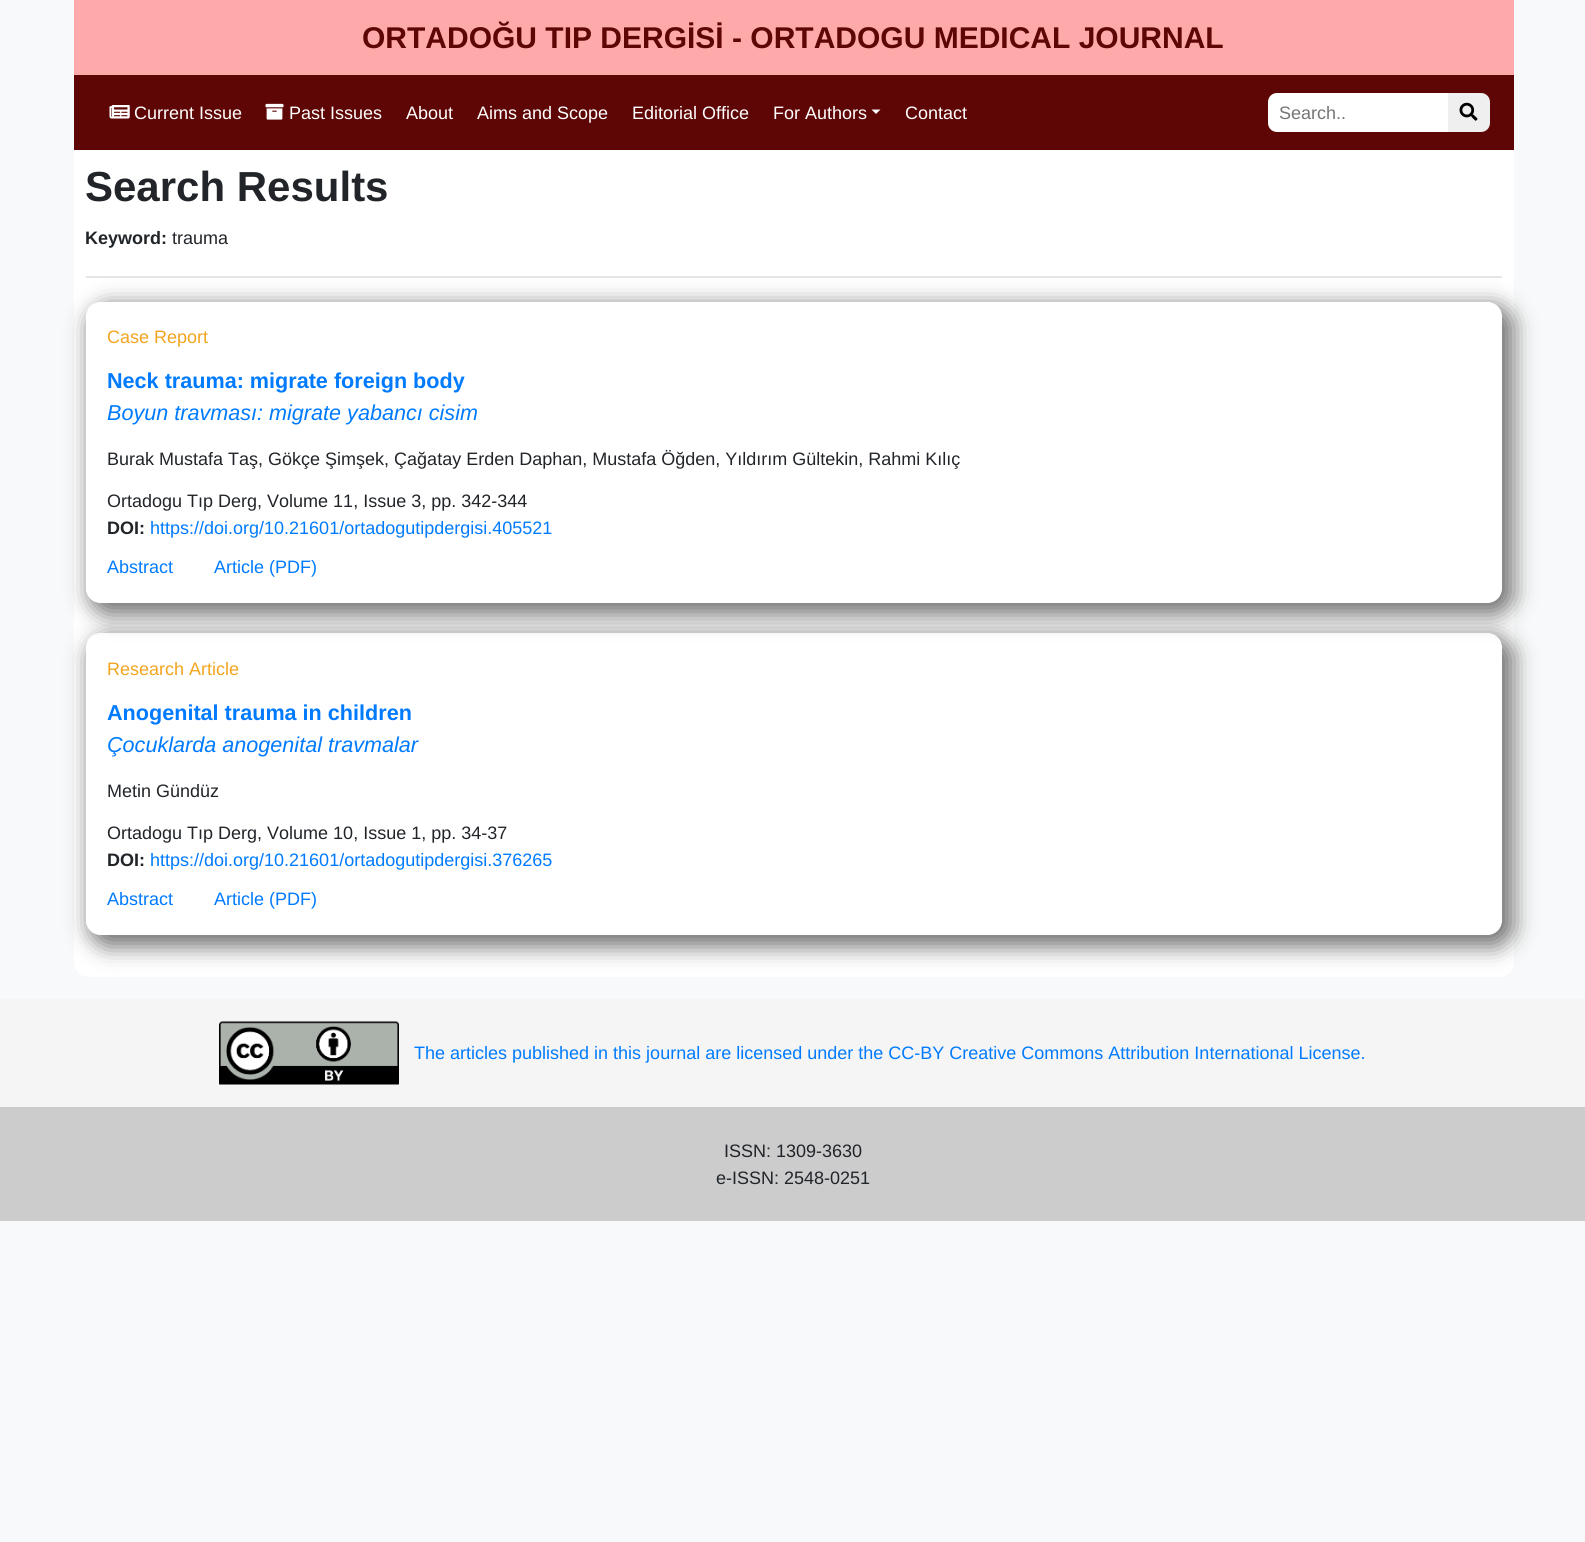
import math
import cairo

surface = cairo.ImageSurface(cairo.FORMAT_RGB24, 1585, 1542)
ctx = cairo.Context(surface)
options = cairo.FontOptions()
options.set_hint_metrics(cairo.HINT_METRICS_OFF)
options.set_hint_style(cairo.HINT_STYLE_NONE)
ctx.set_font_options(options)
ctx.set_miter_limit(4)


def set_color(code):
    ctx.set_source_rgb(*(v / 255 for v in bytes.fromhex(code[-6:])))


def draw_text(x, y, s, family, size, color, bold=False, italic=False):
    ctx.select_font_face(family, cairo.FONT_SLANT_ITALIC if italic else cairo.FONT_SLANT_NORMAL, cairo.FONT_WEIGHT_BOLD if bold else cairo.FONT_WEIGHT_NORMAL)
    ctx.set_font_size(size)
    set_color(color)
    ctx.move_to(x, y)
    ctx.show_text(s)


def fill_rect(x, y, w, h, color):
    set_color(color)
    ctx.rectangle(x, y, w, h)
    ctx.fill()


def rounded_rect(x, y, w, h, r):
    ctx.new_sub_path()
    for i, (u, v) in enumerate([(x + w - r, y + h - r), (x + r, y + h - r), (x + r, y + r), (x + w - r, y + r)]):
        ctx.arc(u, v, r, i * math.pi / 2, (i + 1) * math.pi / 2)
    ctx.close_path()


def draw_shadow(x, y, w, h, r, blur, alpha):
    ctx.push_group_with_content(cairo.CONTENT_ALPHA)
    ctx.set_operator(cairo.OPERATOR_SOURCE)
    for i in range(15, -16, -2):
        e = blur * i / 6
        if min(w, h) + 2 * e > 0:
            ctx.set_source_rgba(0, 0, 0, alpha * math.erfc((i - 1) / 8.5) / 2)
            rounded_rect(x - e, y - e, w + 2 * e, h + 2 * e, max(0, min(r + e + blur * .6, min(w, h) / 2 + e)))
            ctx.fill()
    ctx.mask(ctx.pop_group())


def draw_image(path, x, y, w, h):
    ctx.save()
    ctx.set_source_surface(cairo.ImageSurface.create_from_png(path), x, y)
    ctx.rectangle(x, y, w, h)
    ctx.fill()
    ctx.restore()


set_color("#f8f9fa")
ctx.paint()
set_color("#ffffff")
ctx.new_path()
ctx.move_to(74, 0)
ctx.line_to(1514, 0)
ctx.line_to(1514, 962)
ctx.curve_to(1514, 970.5, 1507.5, 977, 1499, 977)
ctx.line_to(89, 977)
ctx.curve_to(80.5, 977, 74, 970.5, 74, 962)
ctx.close_path()
ctx.fill()
fill_rect(74, 0, 1440, 75, "#ffaaaa")
draw_text(362, 48, "ORTADOĞU TIP DERGİSİ - ORTADOGU MEDICAL JOURNAL", "Liberation Sans", 30, "#5e0605", bold=True)
fill_rect(74, 75, 1440, 75, "#5e0605")
draw_image("assets/img1.png", 109, 105, 21, 14)
draw_text(134, 119, "Current Issue", "Liberation Sans", 18, "#ffffff")
draw_image("assets/img2.png", 265, 103, 19, 17)
draw_text(289, 119, "Past Issues", "Liberation Sans", 18, "#ffffff")
draw_text(406, 119, "About", "Liberation Sans", 18, "#ffffff")
draw_text(477, 119, "Aims and Scope", "Liberation Sans", 18, "#ffffff")
draw_text(632, 119, "Editorial Office", "Liberation Sans", 18, "#ffffff")
draw_text(773, 119, "For Authors", "Liberation Sans", 18, "#ffffff")
ctx.new_path()
ctx.move_to(871.5, 109.5)
ctx.line_to(880.5, 109.5)
ctx.line_to(876, 114)
ctx.close_path()
ctx.fill()
draw_text(905, 119, "Contact", "Liberation Sans", 18, "#ffffff")
ctx.new_path()
ctx.move_to(1277, 93)
ctx.line_to(1448, 93)
ctx.line_to(1448, 132)
ctx.line_to(1277, 132)
ctx.curve_to(1272, 132, 1268, 128, 1268, 123)
ctx.line_to(1268, 102)
ctx.curve_to(1268, 97, 1272, 93, 1277, 93)
ctx.close_path()
ctx.fill()
draw_text(1279, 119, "Search..", "Liberation Sans", 18, "#757575")
set_color("#efefef")
ctx.new_path()
ctx.move_to(1448, 93)
ctx.line_to(1481, 93)
ctx.curve_to(1486, 93, 1490, 97, 1490, 102)
ctx.line_to(1490, 123)
ctx.curve_to(1490, 128, 1486, 132, 1481, 132)
ctx.line_to(1448, 132)
ctx.close_path()
ctx.fill()
draw_image("assets/img3.png", 1459, 102, 19, 19)
draw_text(85, 201, "Search Results", "Liberation Sans", 42, "#212529", bold=True)
draw_text(85, 244, "Keyword:", "Liberation Sans", 18, "#212529", bold=True)
draw_text(172, 244, "trauma", "Liberation Sans", 18, "#212529")
fill_rect(86, 276, 1416, 2, "#e6e6e6")
ctx.save()
ctx.set_fill_rule(cairo.FILL_RULE_EVEN_ODD)
ctx.new_path()
ctx.move_to(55, 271)
ctx.line_to(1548, 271)
ctx.line_to(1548, 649)
ctx.line_to(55, 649)
ctx.close_path()
ctx.move_to(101, 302)
ctx.line_to(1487, 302)
ctx.curve_to(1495.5, 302, 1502, 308.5, 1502, 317)
ctx.line_to(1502, 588)
ctx.curve_to(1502, 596.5, 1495.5, 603, 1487, 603)
ctx.line_to(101, 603)
ctx.curve_to(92.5, 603, 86, 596.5, 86, 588)
ctx.line_to(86, 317)
ctx.curve_to(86, 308.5, 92.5, 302, 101, 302)
ctx.close_path()
ctx.clip()
set_color("#757575")
draw_shadow(89, 305, 1425, 310, 20, 11, 1)
ctx.restore()
draw_text(107, 343, "Case Report", "Liberation Sans", 18, "#f2a41e")
draw_text(107, 388, "Neck trauma: migrate foreign body", "Liberation Sans", 21.6, "#007bff", bold=True)
draw_text(107, 420, "Boyun travması: migrate yabancı cisim", "Liberation Sans", 21.6, "#007bff", italic=True)
draw_text(107, 465, "Burak Mustafa Taş, Gökçe Şimşek, Çağatay Erden Daphan, Mustafa Öğden, Yıldırım Gültekin, Rahmi Kılıç", "Liberation Sans", 18, "#212529")
draw_text(107, 507, "Ortadogu Tıp Derg, Volume 11, Issue 3, pp. 342-344", "Liberation Sans", 18, "#212529")
draw_text(107, 534, "DOI:", "Liberation Sans", 18, "#212529", bold=True)
draw_text(150, 534, "https://doi.org/10.21601/ortadogutipdergisi.405521", "Liberation Sans", 18, "#007bff")
draw_text(107, 573, "Abstract", "Liberation Sans", 18, "#007bff")
draw_text(214, 573, "Article (PDF)", "Liberation Sans", 18, "#007bff")
ctx.save()
ctx.set_fill_rule(cairo.FILL_RULE_EVEN_ODD)
ctx.new_path()
ctx.move_to(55, 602)
ctx.line_to(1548, 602)
ctx.line_to(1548, 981)
ctx.line_to(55, 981)
ctx.close_path()
ctx.move_to(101, 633)
ctx.line_to(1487, 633)
ctx.curve_to(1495.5, 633, 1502, 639.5, 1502, 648)
ctx.line_to(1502, 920)
ctx.curve_to(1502, 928.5, 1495.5, 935, 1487, 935)
ctx.line_to(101, 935)
ctx.curve_to(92.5, 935, 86, 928.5, 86, 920)
ctx.line_to(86, 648)
ctx.curve_to(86, 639.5, 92.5, 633, 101, 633)
ctx.close_path()
ctx.clip()
set_color("#757575")
draw_shadow(89, 636, 1425, 311, 20, 11, 1)
ctx.restore()
draw_text(107, 675, "Research Article", "Liberation Sans", 18, "#f2a41e")
draw_text(107, 720, "Anogenital trauma in children", "Liberation Sans", 21.6, "#007bff", bold=True)
draw_text(107, 752, "Çocuklarda anogenital travmalar", "Liberation Sans", 21.6, "#007bff", italic=True)
draw_text(107, 797, "Metin Gündüz", "Liberation Sans", 18, "#212529")
draw_text(107, 839, "Ortadogu Tıp Derg, Volume 10, Issue 1, pp. 34-37", "Liberation Sans", 18, "#212529")
draw_text(107, 866, "DOI:", "Liberation Sans", 18, "#212529", bold=True)
draw_text(150, 866, "https://doi.org/10.21601/ortadogutipdergisi.376265", "Liberation Sans", 18, "#007bff")
draw_text(107, 905, "Abstract", "Liberation Sans", 18, "#007bff")
draw_text(214, 905, "Article (PDF)", "Liberation Sans", 18, "#007bff")
fill_rect(0, 999, 1585, 108, "#f5f5f5")
draw_image("assets/img4.png", 219, 1021, 180, 64)
draw_text(414, 1059, "The articles published in this journal are licensed under the CC-BY Creative Commons Attribution International License.", "Liberation Sans", 18, "#007bff")
fill_rect(0, 1107, 1585, 114, "#cccccc")
draw_text(724, 1157, "ISSN: 1309-3630", "Liberation Sans", 18, "#212529")
draw_text(716, 1184, "e-ISSN: 2548-0251", "Liberation Sans", 18, "#212529")
surface.write_to_png("output.png")
